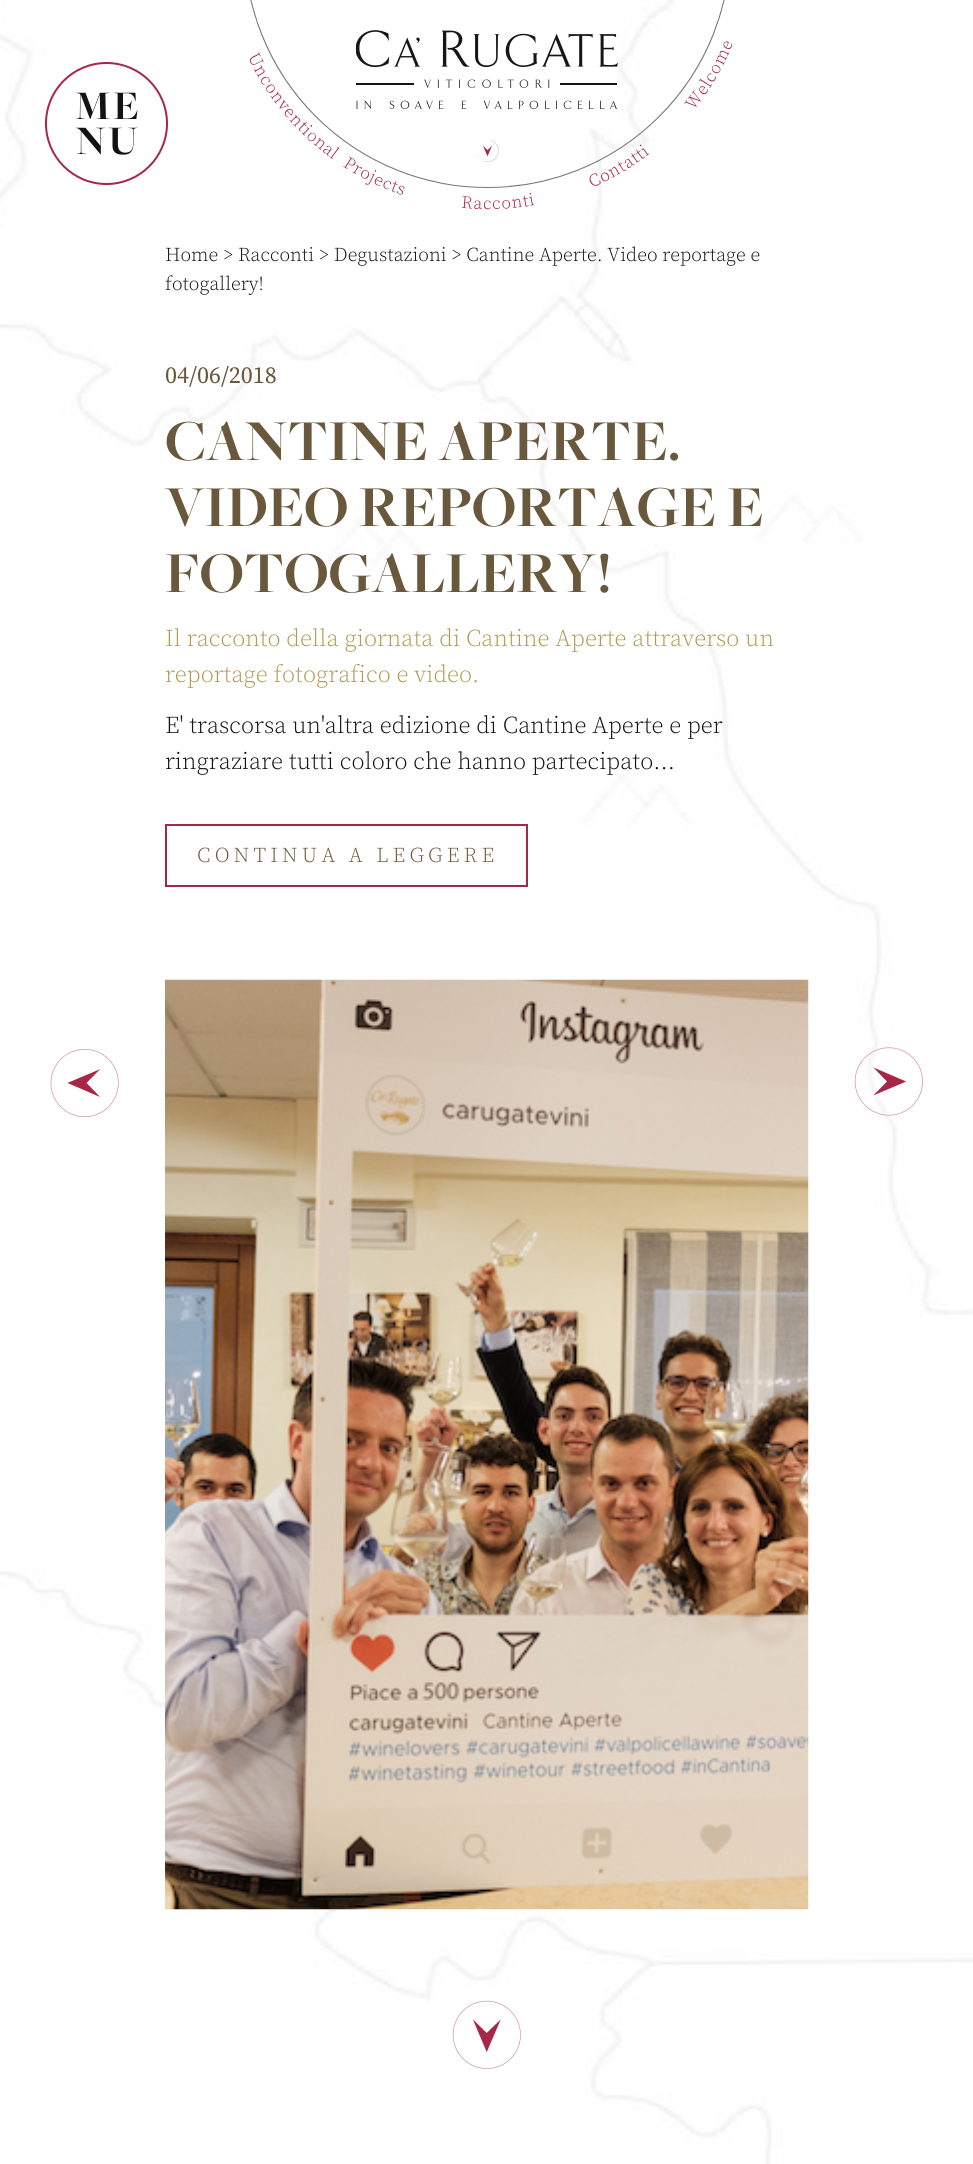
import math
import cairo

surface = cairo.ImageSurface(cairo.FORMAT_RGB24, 973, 2164)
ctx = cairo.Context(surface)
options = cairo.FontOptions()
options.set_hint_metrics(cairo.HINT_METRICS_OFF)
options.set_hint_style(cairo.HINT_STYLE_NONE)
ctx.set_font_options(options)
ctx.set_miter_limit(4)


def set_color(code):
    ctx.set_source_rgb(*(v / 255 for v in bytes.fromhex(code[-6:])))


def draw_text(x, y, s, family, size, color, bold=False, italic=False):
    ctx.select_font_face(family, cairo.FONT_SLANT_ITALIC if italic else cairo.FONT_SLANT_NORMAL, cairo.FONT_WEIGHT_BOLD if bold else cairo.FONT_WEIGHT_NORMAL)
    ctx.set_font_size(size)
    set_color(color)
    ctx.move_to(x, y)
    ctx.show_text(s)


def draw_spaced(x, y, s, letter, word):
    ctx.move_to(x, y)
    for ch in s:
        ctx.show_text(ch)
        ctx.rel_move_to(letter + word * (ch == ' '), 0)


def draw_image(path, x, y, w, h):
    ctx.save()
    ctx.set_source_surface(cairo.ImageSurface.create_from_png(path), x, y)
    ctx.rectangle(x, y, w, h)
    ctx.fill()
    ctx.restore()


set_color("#ffffff")
ctx.paint()
draw_image("assets/img4.png", 0, 0, 973, 2164)
draw_image("assets/img3.png", 477, 140, 22, 22)
draw_image("assets/img1.png", 249, 0, 484, 210)
ctx.arc(106.5, 123.5, 60.5, 0, 2 * math.pi)
set_color("#a62748")
ctx.stroke()
ctx.select_font_face("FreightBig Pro", cairo.FONT_SLANT_NORMAL, cairo.FONT_WEIGHT_BOLD)
ctx.set_font_size(42)
set_color("#141313")
draw_spaced(75, 119, "ME", 3, 0)
draw_spaced(76, 154, "NU", 3, 0)
draw_image("assets/img2.png", 356, 30, 262, 80)
draw_text(165, 261, "Home > Racconti > Degustazioni > Cantine Aperte. Video reportage e", "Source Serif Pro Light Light", 19.5, "#141313")
draw_text(165, 290, "fotogallery!", "Source Serif Pro Light Light", 19.5, "#141313")
draw_text(165, 383, "04/06/2018", "Source Serif Pro", 24, "#6a583c")
draw_text(165, 460, "CANTINE APERTE.", "FreightBig Pro", 60, "#6a583c", bold=True)
draw_text(165, 526, "VIDEO REPORTAGE E", "FreightBig Pro", 60, "#6a583c", bold=True)
draw_text(165, 592, "FOTOGALLERY!", "FreightBig Pro", 60, "#6a583c", bold=True)
draw_text(165, 646, "Il racconto della giornata di Cantine Aperte attraverso un", "Source Serif Pro Light Light", 24, "#b19b53")
draw_text(165, 682, "reportage fotografico e video.", "Source Serif Pro Light Light", 24, "#b19b53")
draw_text(165, 733, "E' trascorsa un'altra edizione di Cantine Aperte e per", "Source Serif Pro Light Light", 24, "#141313")
draw_text(165, 769, "ringraziare tutti coloro che hanno partecipato...", "Source Serif Pro Light Light", 24, "#141313")
ctx.rectangle(166, 825, 361, 61)
set_color("#a62748")
ctx.stroke()
ctx.set_font_size(21)
set_color("#6a583c")
draw_spaced(197, 862, "CONTINUA A LEGGERE", 4.25, 0)
draw_image("assets/img5.png", 165, 979, 644, 931)
draw_image("assets/img6.png", 452, 2000, 69, 69)
draw_image("assets/img7.png", 50, 1049, 69, 69)
draw_image("assets/img8.png", 854, 1047, 69, 69)
surface.write_to_png("output.png")
